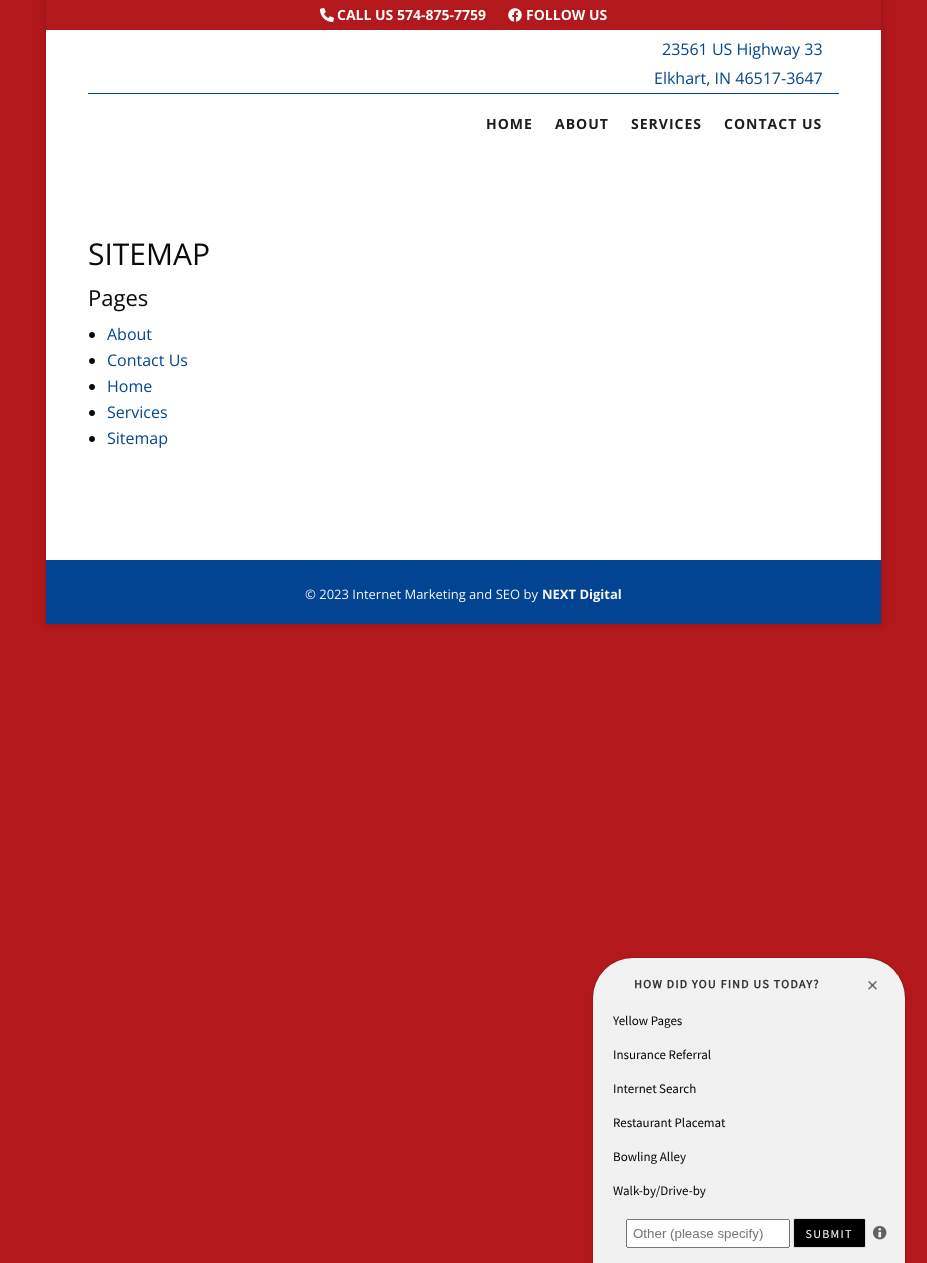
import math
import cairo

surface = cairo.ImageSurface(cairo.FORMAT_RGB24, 927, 1263)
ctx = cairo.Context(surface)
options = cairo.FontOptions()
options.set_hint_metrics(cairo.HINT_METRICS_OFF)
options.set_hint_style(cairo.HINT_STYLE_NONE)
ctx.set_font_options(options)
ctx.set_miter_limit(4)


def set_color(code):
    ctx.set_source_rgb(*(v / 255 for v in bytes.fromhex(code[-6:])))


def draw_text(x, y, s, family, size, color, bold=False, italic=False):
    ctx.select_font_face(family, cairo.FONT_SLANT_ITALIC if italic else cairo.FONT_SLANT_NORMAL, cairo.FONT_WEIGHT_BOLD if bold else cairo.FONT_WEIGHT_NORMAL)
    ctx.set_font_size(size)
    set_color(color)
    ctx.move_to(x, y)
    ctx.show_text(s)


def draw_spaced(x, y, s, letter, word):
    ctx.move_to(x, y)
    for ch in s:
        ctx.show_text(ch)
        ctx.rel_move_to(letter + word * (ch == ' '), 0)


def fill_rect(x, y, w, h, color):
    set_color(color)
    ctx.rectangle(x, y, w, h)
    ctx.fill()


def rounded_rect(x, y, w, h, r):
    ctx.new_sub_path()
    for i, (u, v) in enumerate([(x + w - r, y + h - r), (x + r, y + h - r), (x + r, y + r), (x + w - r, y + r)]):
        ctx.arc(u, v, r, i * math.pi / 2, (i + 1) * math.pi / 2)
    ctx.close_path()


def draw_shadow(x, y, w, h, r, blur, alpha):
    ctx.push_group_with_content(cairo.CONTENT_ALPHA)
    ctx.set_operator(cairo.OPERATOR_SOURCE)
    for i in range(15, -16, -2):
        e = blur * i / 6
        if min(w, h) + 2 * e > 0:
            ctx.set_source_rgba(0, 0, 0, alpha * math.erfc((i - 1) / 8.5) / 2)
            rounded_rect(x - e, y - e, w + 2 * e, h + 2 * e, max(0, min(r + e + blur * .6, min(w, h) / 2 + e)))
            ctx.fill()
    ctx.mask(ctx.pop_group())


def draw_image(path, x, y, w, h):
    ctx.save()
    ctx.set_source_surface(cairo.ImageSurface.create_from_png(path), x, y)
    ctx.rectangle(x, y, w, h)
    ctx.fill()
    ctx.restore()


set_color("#b3181c")
ctx.paint()
set_color("#000000")
draw_shadow(46, 0, 835, 624, 0, 5, 0.2)
fill_rect(46, 0, 835, 30, "#b3181c")
draw_image("assets/img1.png", 320, 8, 14, 14)
draw_text(337, 20, "CALL US 574-875-7759", "Open Sans", 14, "#ffffff", bold=True)
draw_image("assets/img2.png", 508, 8, 14, 14)
draw_text(526, 20, "FOLLOW US", "Open Sans", 14, "#ffffff", bold=True)
fill_rect(46, 30, 835, 530, "#ffffff")
draw_text(662, 55, "23561 US Highway 33", "Open Sans", 16, "#024492")
draw_text(654, 84, "Elkhart, IN 46517-3647", "Open Sans", 16, "#024492")
fill_rect(88, 93, 751, 1, "#024492")
ctx.select_font_face("Open Sans", cairo.FONT_SLANT_NORMAL, cairo.FONT_WEIGHT_BOLD)
ctx.set_font_size(14)
set_color("#1d1d1d")
draw_spaced(486, 129, "HOME", 1, 0)
draw_spaced(555, 129, "ABOUT", 1, 0)
draw_spaced(631, 129, "SERVICES", 1, 0)
draw_spaced(724, 129, "CONTACT US", 1, 0)
draw_text(88, 265, "SITEMAP", "Open Sans", 30, "#0a0a0a")
draw_text(88, 306, "Pages", "Open Sans", 22, "#0a0a0a")
ctx.new_path()
ctx.arc(92, 335, 3, 0, 2 * math.pi)
ctx.fill()
draw_text(107, 340, "About", "Open Sans", 16, "#024492")
set_color("#0a0a0a")
ctx.new_path()
ctx.arc(92, 361, 3, 0, 2 * math.pi)
ctx.fill()
draw_text(107, 366, "Contact Us", "Open Sans", 16, "#024492")
set_color("#0a0a0a")
ctx.new_path()
ctx.arc(92, 387, 3, 0, 2 * math.pi)
ctx.fill()
draw_text(107, 392, "Home", "Open Sans", 16, "#024492")
set_color("#0a0a0a")
ctx.new_path()
ctx.arc(92, 413, 3, 0, 2 * math.pi)
ctx.fill()
draw_text(107, 418, "Services", "Open Sans", 16, "#024492")
set_color("#0a0a0a")
ctx.new_path()
ctx.arc(92, 439, 3, 0, 2 * math.pi)
ctx.fill()
draw_text(107, 444, "Sitemap", "Open Sans", 16, "#024492")
fill_rect(46, 560, 835, 64, "#024492")
draw_text(305, 599, "© 2023 Internet Marketing and SEO by", "Open Sans", 13, "#f9f9f9")
draw_text(542, 599, "NEXT Digital", "Open Sans", 13, "#f9f9f9", bold=True)
draw_image("assets/img3.png", 591, 957, 316, 306)
surface.write_to_png("output.png")
